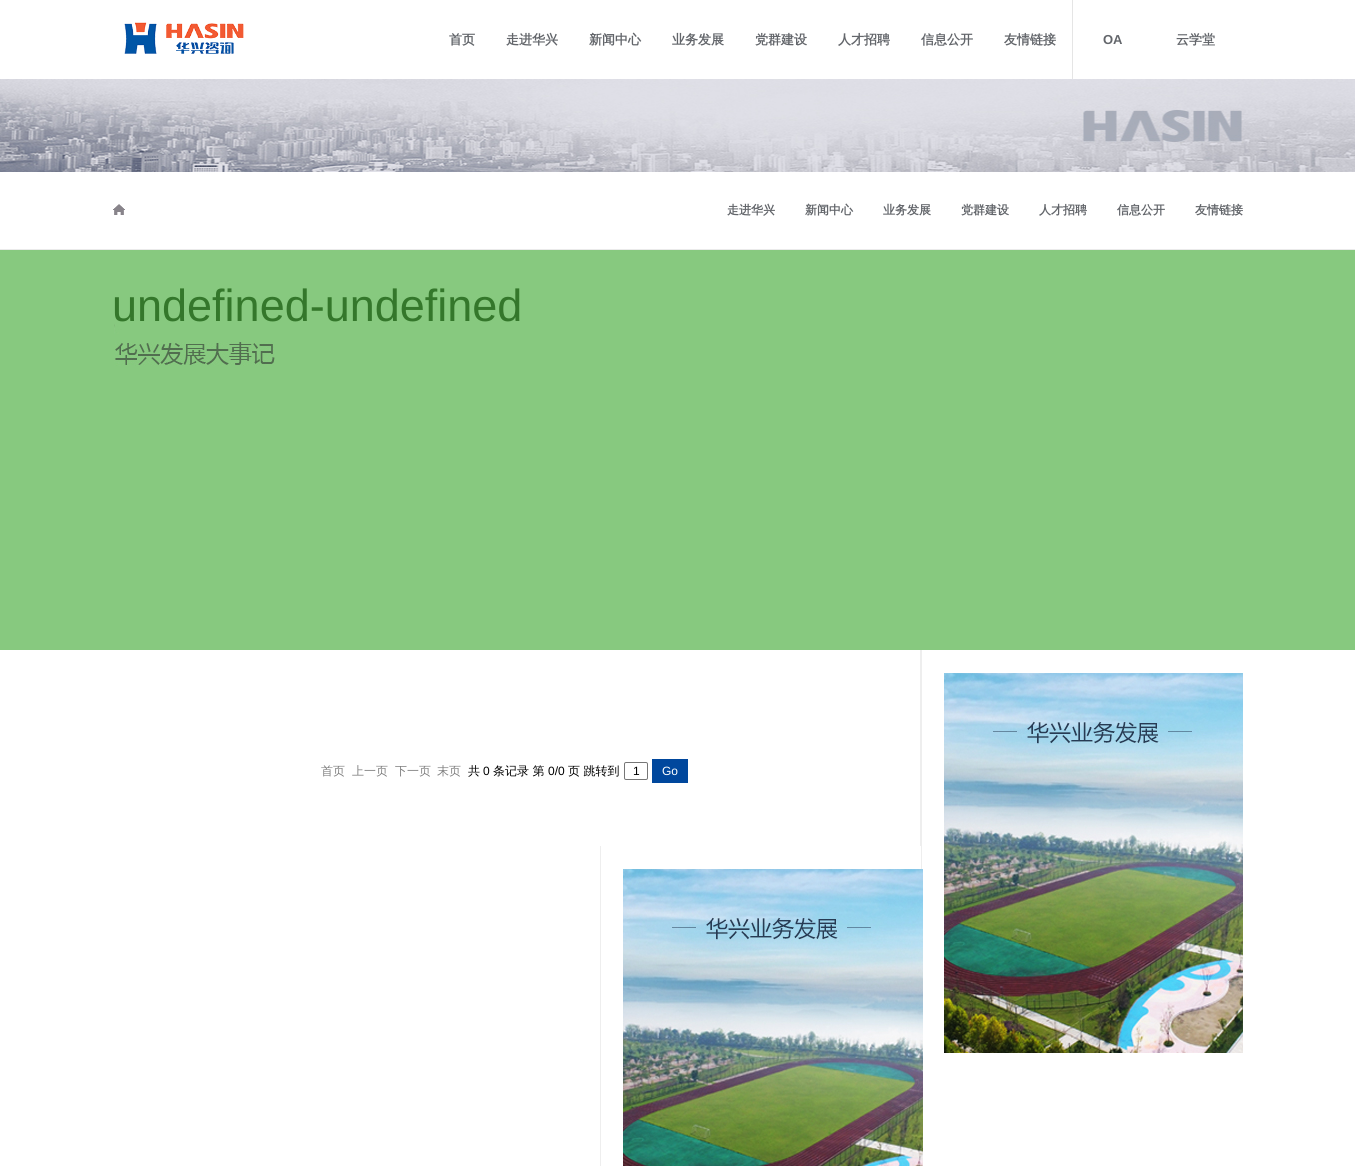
import math
import cairo

surface = cairo.ImageSurface(cairo.FORMAT_RGB24, 1355, 1166)
ctx = cairo.Context(surface)
options = cairo.FontOptions()
options.set_hint_metrics(cairo.HINT_METRICS_OFF)
options.set_hint_style(cairo.HINT_STYLE_NONE)
ctx.set_font_options(options)
ctx.set_miter_limit(4)


def set_color(code):
    ctx.set_source_rgb(*(v / 255 for v in bytes.fromhex(code[-6:])))


def draw_text(x, y, s, family, size, color, bold=False, italic=False):
    ctx.select_font_face(family, cairo.FONT_SLANT_ITALIC if italic else cairo.FONT_SLANT_NORMAL, cairo.FONT_WEIGHT_BOLD if bold else cairo.FONT_WEIGHT_NORMAL)
    ctx.set_font_size(size)
    set_color(color)
    ctx.move_to(x, y)
    ctx.show_text(s)


def fill_rect(x, y, w, h, color):
    set_color(color)
    ctx.rectangle(x, y, w, h)
    ctx.fill()


def rounded_rect(x, y, w, h, r):
    ctx.new_sub_path()
    for i, (u, v) in enumerate([(x + w - r, y + h - r), (x + r, y + h - r), (x + r, y + r), (x + w - r, y + r)]):
        ctx.arc(u, v, r, i * math.pi / 2, (i + 1) * math.pi / 2)
    ctx.close_path()


def draw_image(path, x, y, w, h):
    ctx.save()
    ctx.set_source_surface(cairo.ImageSurface.create_from_png(path), x, y)
    ctx.rectangle(x, y, w, h)
    ctx.fill()
    ctx.restore()


set_color("#ffffff")
ctx.paint()
draw_image("assets/img1.png", 124, 22, 120, 32)
draw_text(449, 44, "首页", "WenQuanYi Zen Hei", 13, "#63666b", bold=True)
draw_text(506, 44, "走进华兴", "WenQuanYi Zen Hei", 13, "#63666b", bold=True)
draw_text(589, 44, "新闻中心", "WenQuanYi Zen Hei", 13, "#63666b", bold=True)
draw_text(672, 44, "业务发展", "WenQuanYi Zen Hei", 13, "#63666b", bold=True)
draw_text(755, 44, "党群建设", "WenQuanYi Zen Hei", 13, "#63666b", bold=True)
draw_text(838, 44, "人才招聘", "WenQuanYi Zen Hei", 13, "#63666b", bold=True)
draw_text(921, 44, "信息公开", "WenQuanYi Zen Hei", 13, "#63666b", bold=True)
draw_text(1004, 44, "友情链接", "WenQuanYi Zen Hei", 13, "#63666b", bold=True)
fill_rect(1072, 0, 1, 79, "#e5e5e5")
draw_text(1103, 44, "OA", "Liberation Sans", 13, "#63666b", bold=True)
draw_text(1176, 44, "云学堂", "WenQuanYi Zen Hei", 13, "#63666b", bold=True)
draw_image("assets/img2.png", 0, 79, 1355, 93)
fill_rect(0, 249, 1355, 1, "#eaeaea")
draw_image("assets/img3.png", 113, 204, 12, 11)
draw_text(727, 214, "走进华兴", "WenQuanYi Zen Hei", 12, "#63666b", bold=True)
draw_text(805, 214, "新闻中心", "WenQuanYi Zen Hei", 12, "#63666b", bold=True)
draw_text(883, 214, "业务发展", "WenQuanYi Zen Hei", 12, "#63666b", bold=True)
draw_text(961, 214, "党群建设", "WenQuanYi Zen Hei", 12, "#63666b", bold=True)
draw_text(1039, 214, "人才招聘", "WenQuanYi Zen Hei", 12, "#63666b", bold=True)
draw_text(1117, 214, "信息公开", "WenQuanYi Zen Hei", 12, "#63666b", bold=True)
draw_text(1195, 214, "友情链接", "WenQuanYi Zen Hei", 12, "#63666b", bold=True)
fill_rect(0, 250, 1355, 400, "#87c97f")
draw_image("assets/img4.png", 114, 324, 161, 42)
draw_text(112, 321, "undefined-undefined", "Liberation Sans", 45, "#34772b")
draw_text(321, 775, "首页", "WenQuanYi Zen Hei Medium", 12, "#808080")
draw_text(352, 775, "上一页", "WenQuanYi Zen Hei Medium", 12, "#808080")
draw_text(395, 775, "下一页", "WenQuanYi Zen Hei Medium", 12, "#808080")
draw_text(437, 775, "末页", "WenQuanYi Zen Hei Medium", 12, "#808080")
draw_text(468, 775, "共", "WenQuanYi Zen Hei Medium", 12, "#000000")
draw_text(483, 775, "0", "Liberation Sans", 12, "#000000")
draw_text(493, 775, "条记录 第", "WenQuanYi Zen Hei Medium", 12, "#000000")
draw_text(548, 775, "0/0", "Liberation Sans", 12, "#000000")
draw_text(568, 775, "页 跳转到", "WenQuanYi Zen Hei Medium", 12, "#000000")
rounded_rect(624.5, 762.5, 23, 17, 1.5)
set_color("#767676")
ctx.set_line_width(1)
ctx.stroke()
draw_text(633, 775, "1", "Liberation Sans", 12, "#000000")
fill_rect(652, 759, 36, 24, "#00479d")
draw_text(662, 775, "Go", "Liberation Sans", 12, "#ffffff")
fill_rect(600, 846, 1, 320, "#eeeeee")
draw_image("assets/img5.png", 623, 869, 300, 297)
fill_rect(920, 650, 1, 196, "#eeeeee")
fill_rect(921, 650, 1, 219, "#eeeeee")
draw_image("assets/img6.png", 944, 673, 299, 380)
surface.write_to_png("output.png")
